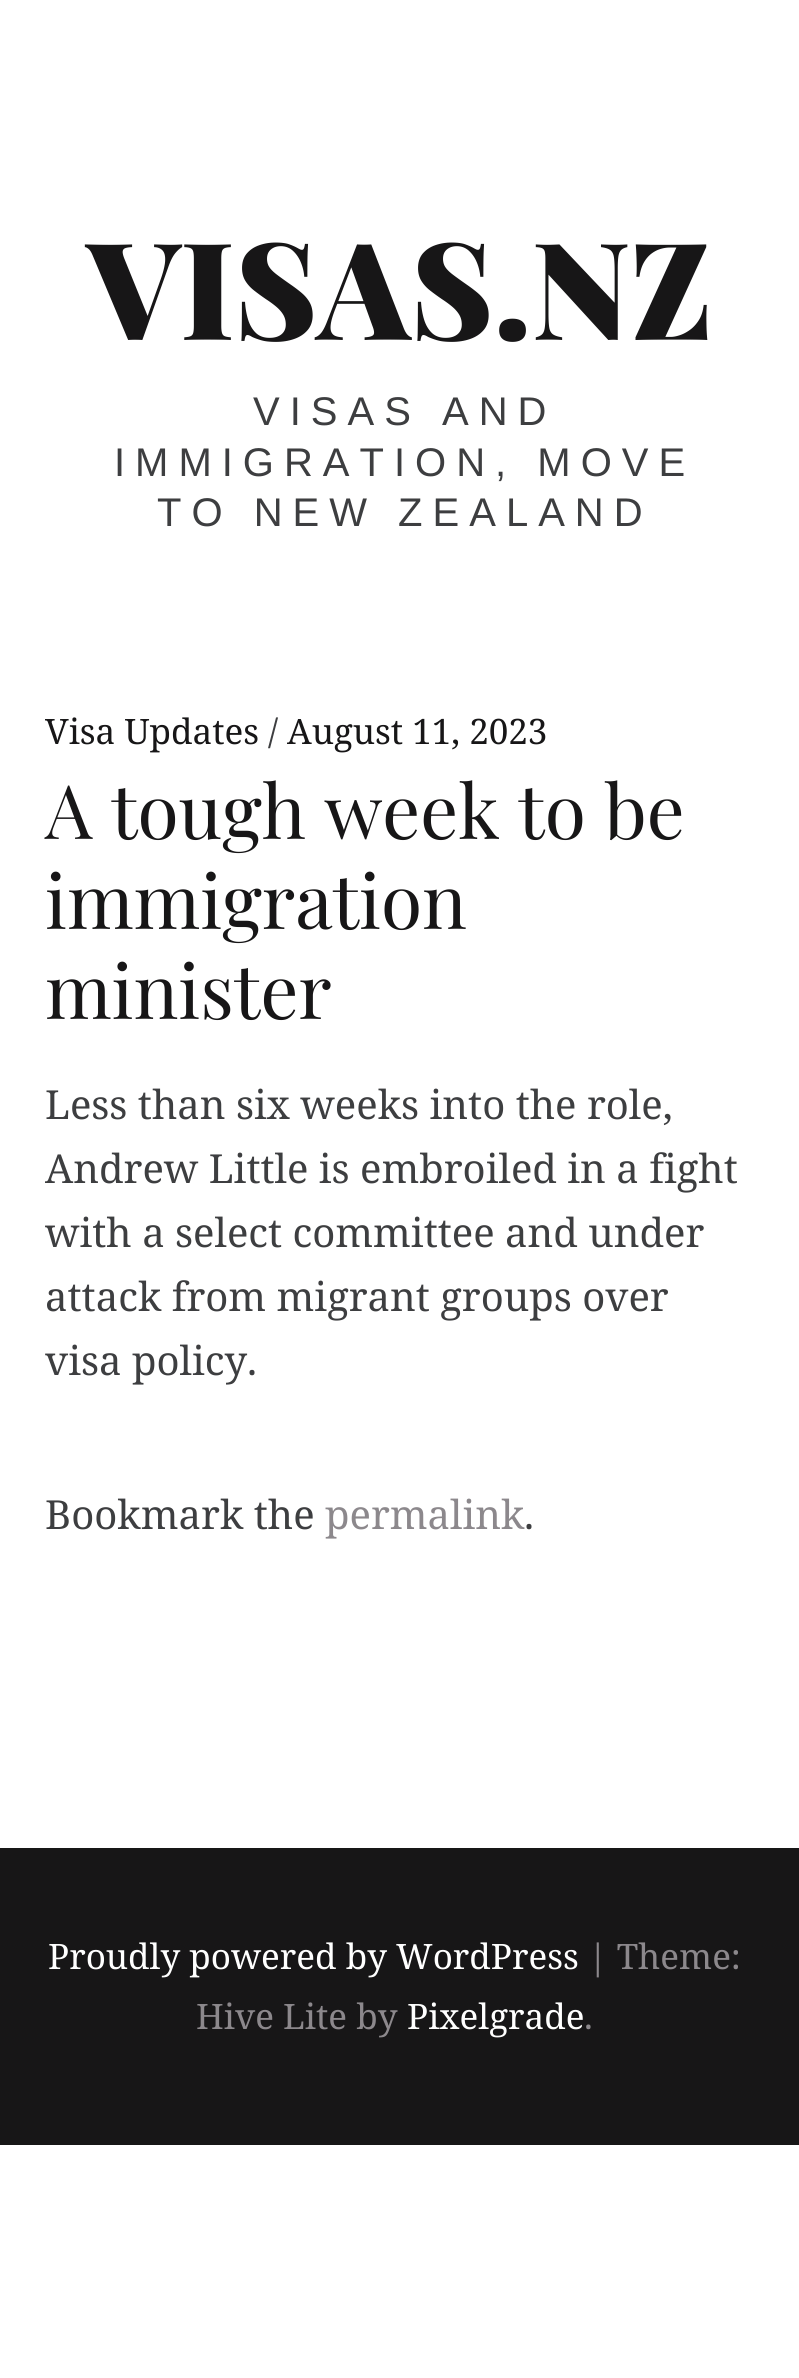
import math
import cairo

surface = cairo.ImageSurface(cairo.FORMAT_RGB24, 799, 2378)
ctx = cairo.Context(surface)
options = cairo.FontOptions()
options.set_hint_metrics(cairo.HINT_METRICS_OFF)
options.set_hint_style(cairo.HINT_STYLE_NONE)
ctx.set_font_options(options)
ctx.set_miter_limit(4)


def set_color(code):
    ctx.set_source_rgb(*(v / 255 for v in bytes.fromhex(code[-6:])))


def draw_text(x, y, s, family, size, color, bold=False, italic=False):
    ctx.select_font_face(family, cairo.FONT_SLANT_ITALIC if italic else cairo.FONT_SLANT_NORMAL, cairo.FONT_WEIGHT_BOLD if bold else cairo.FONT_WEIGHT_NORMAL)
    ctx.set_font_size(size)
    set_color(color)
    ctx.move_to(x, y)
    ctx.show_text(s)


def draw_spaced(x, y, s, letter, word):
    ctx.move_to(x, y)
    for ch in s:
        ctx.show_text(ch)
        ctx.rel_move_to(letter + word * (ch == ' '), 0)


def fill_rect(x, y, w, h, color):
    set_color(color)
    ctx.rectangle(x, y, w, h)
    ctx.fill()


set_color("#ffffff")
ctx.paint()
draw_text(87, 340, "VISAS.NZ", "Playfair Display Black", 135, "#171617")
ctx.select_font_face("Liberation Sans")
ctx.set_font_size(40)
set_color("#3d3e40")
draw_spaced(253, 425, "VISAS AND", 10, 0)
draw_spaced(114, 476, "IMMIGRATION, MOVE", 10, 0)
draw_spaced(157, 526, "TO NEW ZEALAND", 10, 0)
draw_text(45, 744, "Visa Updates", "Noto Serif", 35, "#171617")
draw_text(268, 744, "/", "Noto Serif", 35, "#3d3e40")
draw_text(287, 744, "August 11, 2023", "Noto Serif", 35, "#171617")
draw_text(45, 839, "A tough week to be", "Playfair Display", 75, "#171617")
draw_text(45, 929, "immigration", "Playfair Display", 75, "#171617")
draw_text(45, 1019, "minister", "Playfair Display", 75, "#171617")
draw_text(45, 1119, "Less than six weeks into the role,", "Noto Serif", 40, "#3d3e40")
draw_text(45, 1183, "Andrew Little is embroiled in a fight", "Noto Serif", 40, "#3d3e40")
draw_text(45, 1247, "with a select committee and under", "Noto Serif", 40, "#3d3e40")
draw_text(45, 1311, "attack from migrant groups over", "Noto Serif", 40, "#3d3e40")
draw_text(45, 1375, "visa policy.", "Noto Serif", 40, "#3d3e40")
draw_text(45, 1529, "Bookmark the", "Noto Serif", 40, "#3d3e40")
draw_text(325, 1529, "permalink", "Noto Serif", 40, "#8c888c")
draw_text(524, 1529, ".", "Noto Serif", 40, "#3d3e40")
fill_rect(0, 1848, 799, 297, "#171617")
draw_text(48, 1969, "Proudly powered by WordPress", "Noto Serif", 35, "#ffffff")
draw_text(588, 1969, "| Theme:", "Noto Serif", 35, "#8c888c")
draw_text(196, 2029, "Hive Lite by", "Noto Serif", 35, "#8c888c")
draw_text(407, 2029, "Pixelgrade", "Noto Serif", 35, "#ffffff")
draw_text(584, 2029, ".", "Noto Serif", 35, "#8c888c")
surface.write_to_png("output.png")
